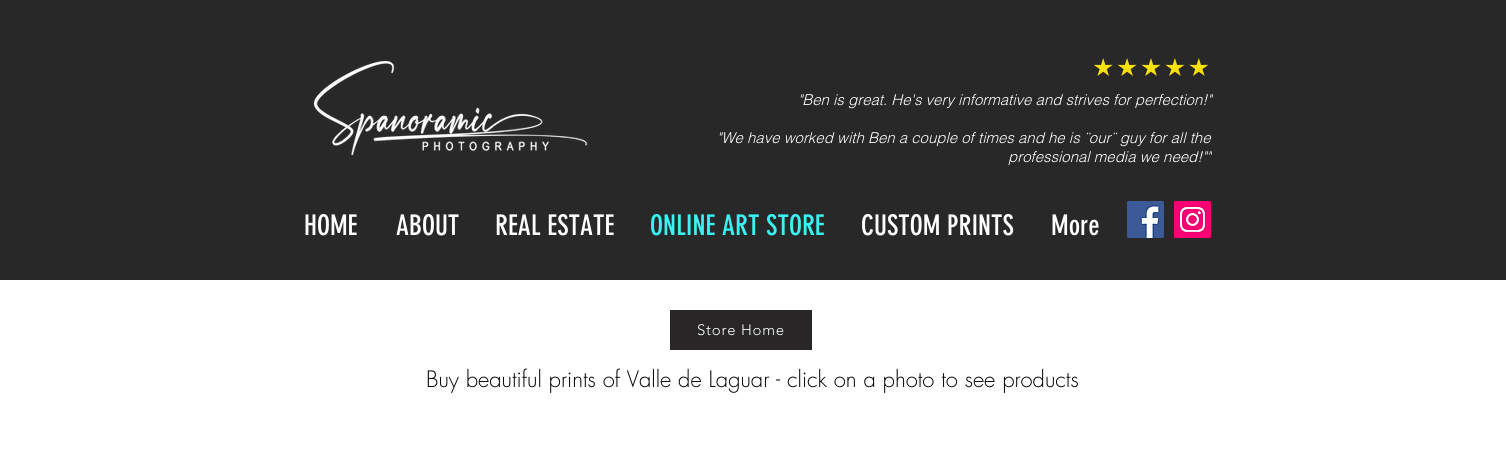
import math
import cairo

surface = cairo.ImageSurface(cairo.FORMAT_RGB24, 1506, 471)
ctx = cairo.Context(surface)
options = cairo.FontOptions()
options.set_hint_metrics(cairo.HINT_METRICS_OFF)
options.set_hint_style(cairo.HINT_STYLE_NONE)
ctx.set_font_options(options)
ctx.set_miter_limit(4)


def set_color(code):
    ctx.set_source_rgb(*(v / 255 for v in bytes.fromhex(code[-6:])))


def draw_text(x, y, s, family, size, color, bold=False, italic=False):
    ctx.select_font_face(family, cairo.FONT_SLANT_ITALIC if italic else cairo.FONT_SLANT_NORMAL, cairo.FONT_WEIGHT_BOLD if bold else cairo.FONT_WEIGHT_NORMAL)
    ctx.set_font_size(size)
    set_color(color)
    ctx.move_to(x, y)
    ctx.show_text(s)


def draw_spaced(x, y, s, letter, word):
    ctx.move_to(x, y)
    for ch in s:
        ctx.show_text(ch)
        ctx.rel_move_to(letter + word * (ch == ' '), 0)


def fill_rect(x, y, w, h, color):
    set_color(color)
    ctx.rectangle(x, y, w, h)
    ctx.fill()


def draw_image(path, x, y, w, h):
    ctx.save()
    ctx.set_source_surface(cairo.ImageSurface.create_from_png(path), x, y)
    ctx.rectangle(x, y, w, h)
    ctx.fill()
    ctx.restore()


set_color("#ffffff")
ctx.paint()
fill_rect(0, 0, 1506, 280, "#282828")
draw_image("assets/img1.png", 313, 60, 275, 96)
draw_image("assets/img2.png", 1093, 58, 116, 18)
draw_text(798, 105, "\"Ben is great. He's very informative and strives for perfection!\"", "helvetica Light", 15, "#ffffff", italic=True)
draw_text(717, 143, "\"We have worked with Ben a couple of times and he is ¨our¨ guy for all the", "helvetica Light", 15, "#ffffff", italic=True)
draw_text(1008, 162, "professional media we need!\"\"", "helvetica Light", 15, "#ffffff", italic=True)
draw_text(304, 235, "HOME", "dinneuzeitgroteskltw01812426", 28, "#ffffff")
draw_text(396, 235, "ABOUT", "dinneuzeitgroteskltw01812426", 28, "#ffffff")
draw_text(495, 235, "REAL ESTATE", "dinneuzeitgroteskltw01812426", 28, "#ffffff")
draw_text(650, 235, "ONLINE ART STORE", "dinneuzeitgroteskltw01812426", 28, "#3af2f2")
draw_text(861, 235, "CUSTOM PRINTS", "dinneuzeitgroteskltw01812426", 28, "#ffffff")
draw_text(1051, 235, "More", "dinneuzeitgroteskltw01812426", 28, "#ffffff")
draw_image("assets/img3.png", 1127, 201, 37, 37)
draw_image("assets/img4.png", 1174, 201, 37, 37)
fill_rect(670, 310, 142, 40, "#282626")
ctx.select_font_face("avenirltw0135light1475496 Light")
ctx.set_font_size(15)
set_color("#ffffff")
draw_spaced(697, 335, "Store Home", 0.75, 0)
draw_text(426, 387, "Buy beautiful prints of Valle de Laguar - click on a photo to see products", "futura Light", 22, "#000000")
surface.write_to_png("output.png")
